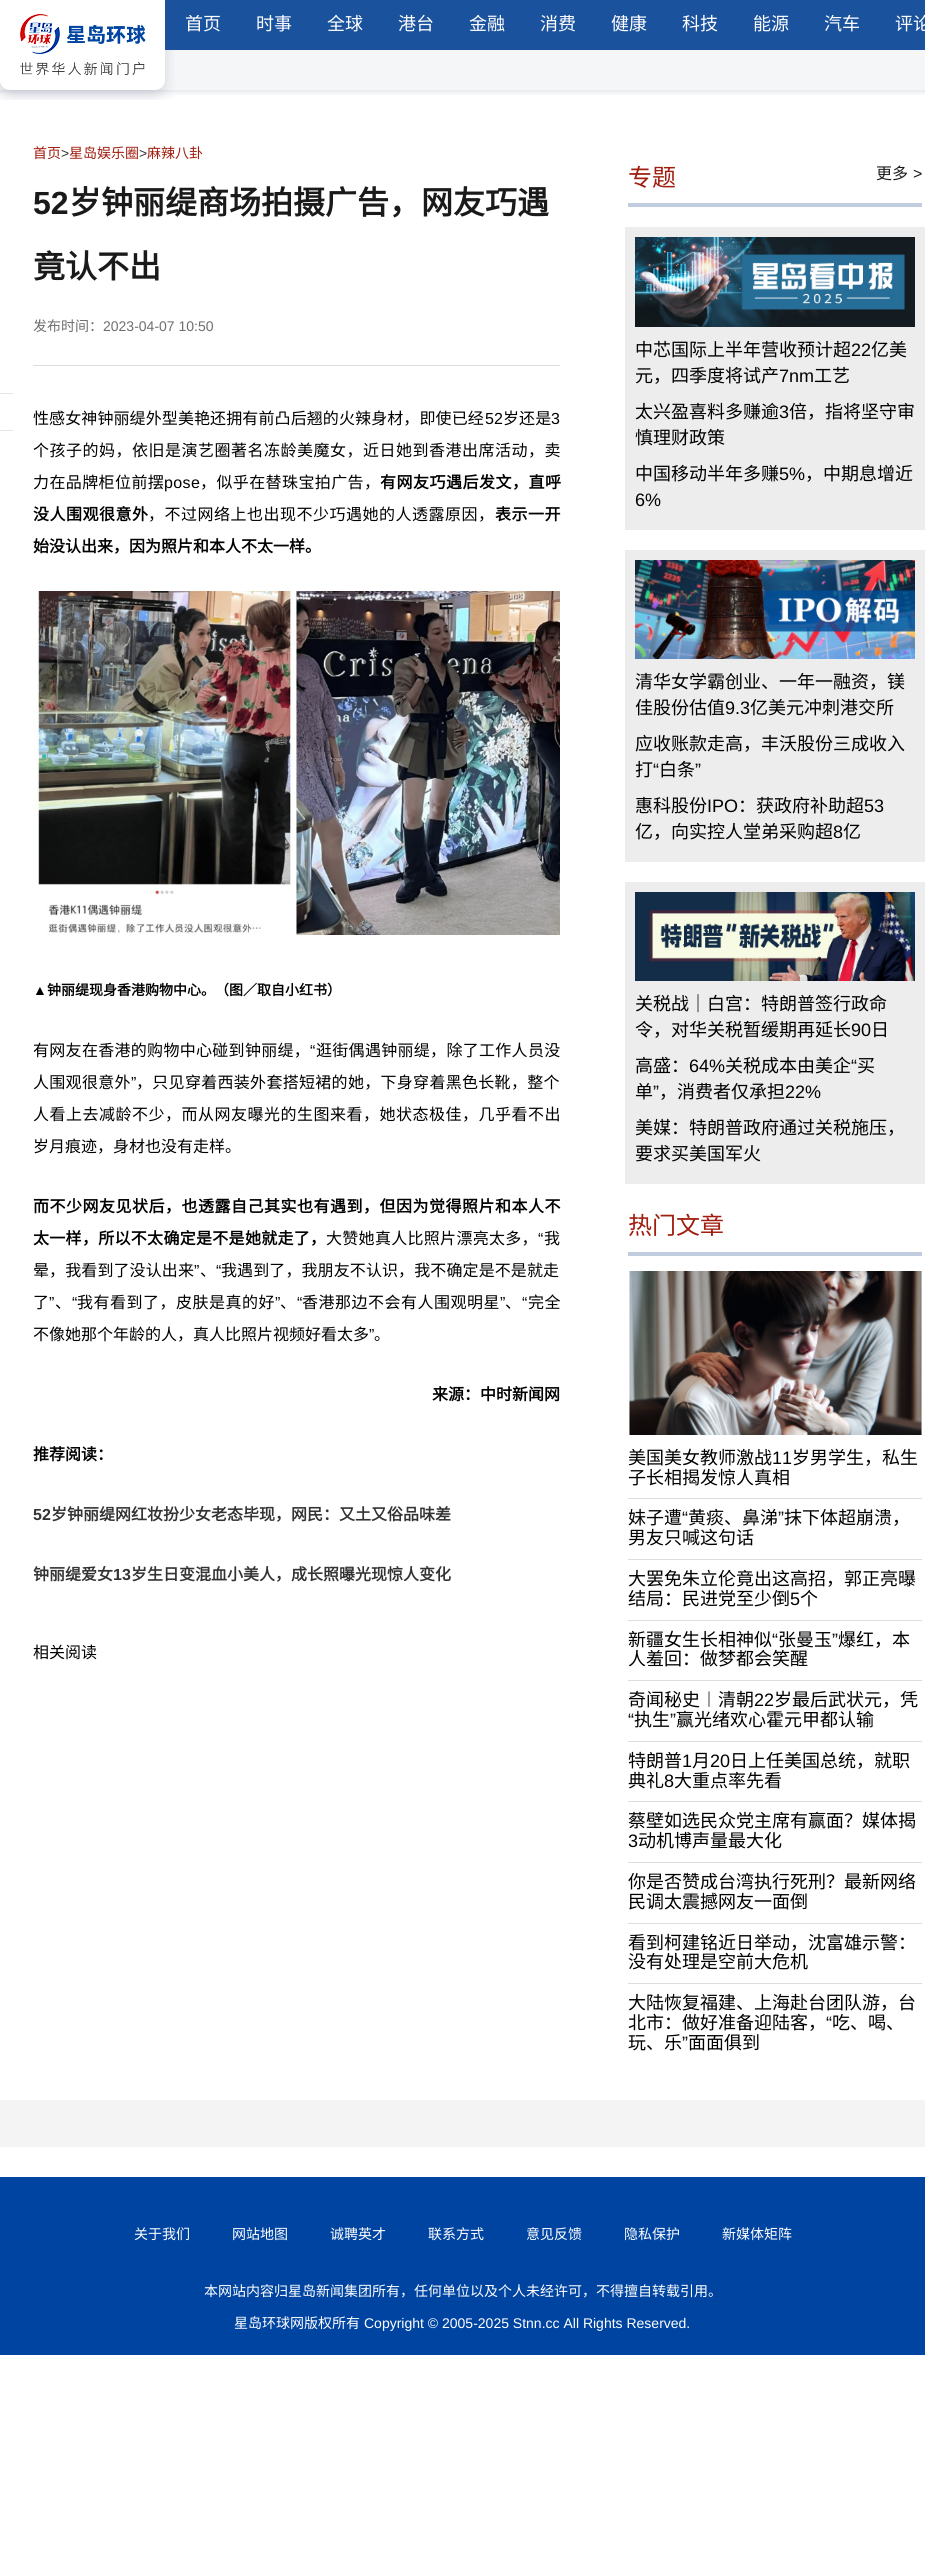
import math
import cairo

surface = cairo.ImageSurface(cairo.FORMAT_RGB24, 925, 2563)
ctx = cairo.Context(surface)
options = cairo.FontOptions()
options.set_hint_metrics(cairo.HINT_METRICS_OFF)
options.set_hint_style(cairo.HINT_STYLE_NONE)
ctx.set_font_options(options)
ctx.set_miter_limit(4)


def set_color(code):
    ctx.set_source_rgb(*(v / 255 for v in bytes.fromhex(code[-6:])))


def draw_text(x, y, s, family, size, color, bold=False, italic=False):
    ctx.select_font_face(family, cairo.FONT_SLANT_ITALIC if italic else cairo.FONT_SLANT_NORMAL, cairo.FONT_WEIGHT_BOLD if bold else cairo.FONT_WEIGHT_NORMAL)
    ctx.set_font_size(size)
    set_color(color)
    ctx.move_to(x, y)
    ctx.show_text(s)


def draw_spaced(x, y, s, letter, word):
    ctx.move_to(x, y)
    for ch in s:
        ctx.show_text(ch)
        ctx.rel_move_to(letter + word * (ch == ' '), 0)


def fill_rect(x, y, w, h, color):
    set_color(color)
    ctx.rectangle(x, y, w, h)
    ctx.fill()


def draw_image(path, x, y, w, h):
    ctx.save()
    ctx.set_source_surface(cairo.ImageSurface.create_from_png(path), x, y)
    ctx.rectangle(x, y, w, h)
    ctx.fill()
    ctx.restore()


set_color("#ffffff")
ctx.paint()
draw_image("assets/img1.png", 165, 0, 760, 95)
draw_image("assets/img2.png", 0, 0, 165, 100)
draw_image("assets/img3.png", 165, 50, 10, 49)
draw_text(185, 30, "首页", "Noto Sans CJK SC", 18, "#ffffff")
draw_text(256, 30, "时事", "Noto Sans CJK SC", 18, "#ffffff")
draw_text(327, 30, "全球", "Noto Sans CJK SC", 18, "#ffffff")
draw_text(398, 30, "港台", "Noto Sans CJK SC", 18, "#ffffff")
draw_text(469, 30, "金融", "Noto Sans CJK SC", 18, "#ffffff")
draw_text(540, 30, "消费", "Noto Sans CJK SC", 18, "#ffffff")
draw_text(611, 30, "健康", "Noto Sans CJK SC", 18, "#ffffff")
draw_text(682, 30, "科技", "Noto Sans CJK SC", 18, "#ffffff")
draw_text(753, 30, "能源", "Noto Sans CJK SC", 18, "#ffffff")
draw_text(824, 30, "汽车", "Noto Sans CJK SC", 18, "#ffffff")
draw_text(895, 30, "评论", "Noto Sans CJK SC", 18, "#ffffff")
fill_rect(0, 393, 13, 1, "#e6e6e6")
fill_rect(0, 305, 1, 1, "#f5f5f5")
fill_rect(0, 366, 1, 1, "#f5f5f5")
fill_rect(0, 430, 13, 1, "#e6e6e6")
draw_text(33, 158, "首页", "Noto Sans CJK SC", 14, "#a01c0e")
draw_text(61, 158, ">", "Liberation Sans", 14, "#333333")
draw_text(69, 158, "星岛娱乐圈", "Noto Sans CJK SC", 14, "#a01c0e")
draw_text(139, 158, ">", "Liberation Sans", 14, "#333333")
draw_text(147, 158, "麻辣八卦", "Noto Sans CJK SC", 14, "#a01c0e")
fill_rect(33, 365, 527, 1, "#dedede")
draw_text(33, 214, "52", "Liberation Sans", 32, "#1a1a1a", bold=True)
draw_text(69, 214, "岁钟丽缇商场拍摄广告，网友巧遇", "Noto Sans CJK SC", 32, "#1a1a1a", bold=True)
draw_text(33, 278, "竟认不出", "Noto Sans CJK SC", 32, "#1a1a1a", bold=True)
draw_text(33, 331, "发布时间：", "Noto Sans CJK SC", 14, "#6e6e6e")
draw_text(103, 331, "2023-04-07 10:50", "Liberation Sans", 14, "#6e6e6e")
ctx.select_font_face("Noto Sans CJK SC")
ctx.set_font_size(16)
set_color("#000000")
draw_spaced(33, 424, "性感女神钟丽缇外型美艳还拥有前凸后翘的火辣身材，即使已经", 0.1, 0)
ctx.select_font_face("Liberation Sans")
draw_spaced(485, 424, "52", 0.1, 0)
ctx.select_font_face("Noto Sans CJK SC")
draw_spaced(503, 424, "岁还是", 0.1, 0)
ctx.select_font_face("Liberation Sans")
draw_spaced(551, 424, "3", 0.1, 0)
ctx.select_font_face("Noto Sans CJK SC")
draw_spaced(33, 456, "个孩子的妈，依旧是演艺圈著名冻龄美魔女，近日她到香港出席活动，卖", 0.5, 0)
draw_spaced(33, 488, "力在品牌柜位前摆", 0.4, 0)
ctx.select_font_face("Liberation Sans")
draw_spaced(164, 488, "pose", 0.4, 0)
ctx.select_font_face("Noto Sans CJK SC")
draw_spaced(200, 488, "，似乎在替珠宝拍广告，", 0.4, 0)
ctx.select_font_face("Noto Sans CJK SC", cairo.FONT_SLANT_NORMAL, cairo.FONT_WEIGHT_BOLD)
draw_spaced(380, 488, "有网友巧遇后发文，直呼", 0.5, 0)
draw_spaced(33, 520, "没人围观很意外", 0.5, 0)
ctx.select_font_face("Noto Sans CJK SC")
draw_spaced(148, 520, "，不过网络上也出现不少巧遇她的人透露原因，", 0.5, 0)
ctx.select_font_face("Noto Sans CJK SC", cairo.FONT_SLANT_NORMAL, cairo.FONT_WEIGHT_BOLD)
draw_spaced(495, 520, "表示一开", 0.5, 0)
draw_text(33, 552, "始没认出来，因为照片和本人不太一样。", "Noto Sans CJK SC", 16, "#000000", bold=True)
draw_image("assets/img4.png", 33, 591, 527, 344)
draw_text(33, 995, "▲", "Liberation Serif", 14, "#000000", bold=True)
draw_text(47, 995, "钟丽缇现身香港购物中心。（图／取自小红书）", "Noto Sans CJK SC", 14, "#000000", bold=True)
ctx.select_font_face("Noto Sans CJK SC")
ctx.set_font_size(16)
draw_spaced(33, 1056, "有网友在香港的购物中心碰到钟丽缇，", 0.3, 0)
ctx.select_font_face("Liberation Sans")
draw_spaced(310, 1056, "“", 0.3, 0)
ctx.select_font_face("Noto Sans CJK SC")
draw_spaced(316, 1056, "逛街偶遇钟丽缇，除了工作人员没", 0.3, 0)
draw_spaced(33, 1088, "人围观很意外", 0.3, 0)
ctx.select_font_face("Liberation Sans")
draw_spaced(131, 1088, "”", 0.3, 0)
ctx.select_font_face("Noto Sans CJK SC")
draw_spaced(136, 1088, "，只见穿着西装外套搭短裙的她，下身穿着黑色长靴，整个", 0.3, 0)
draw_spaced(33, 1120, "人看上去减龄不少，而从网友曝光的生图来看，她状态极佳，几乎看不出", 0.5, 0)
draw_text(33, 1152, "岁月痕迹，身材也没有走样。", "Noto Sans CJK SC", 16, "#000000")
ctx.select_font_face("Noto Sans CJK SC", cairo.FONT_SLANT_NORMAL, cairo.FONT_WEIGHT_BOLD)
draw_spaced(33, 1212, "而不少网友见状后，也透露自己其实也有遇到，但因为觉得照片和本人不", 0.5, 0)
draw_spaced(33, 1244, "太一样，所以不太确定是不是她就走了，", 0.3, 0)
ctx.select_font_face("Noto Sans CJK SC")
draw_spaced(326, 1244, "大赞她真人比照片漂亮太多，", 0.3, 0)
ctx.select_font_face("Liberation Sans")
draw_spaced(538, 1244, "“", 0.3, 0)
ctx.select_font_face("Noto Sans CJK SC")
draw_spaced(544, 1244, "我", 0.3, 0)
draw_spaced(33, 1276, "晕，我看到了没认出来", 0.1, 0)
ctx.select_font_face("Liberation Sans")
draw_spaced(194, 1276, "”", 0.1, 0)
draw_spaced(216, 1276, "“", 0.1, 0)
ctx.select_font_face("Noto Sans CJK SC")
draw_spaced(221, 1276, "我遇到了，我朋友不认识，我不确定是不是就走", 0.1, 0)
draw_spaced(200, 1276, "、", 0.1, 0)
draw_spaced(33, 1308, "了", 0.5, 0)
ctx.select_font_face("Liberation Sans")
draw_spaced(49, 1308, "”", 0.5, 0)
draw_spaced(72, 1308, "“", 0.5, 0)
ctx.select_font_face("Noto Sans CJK SC")
draw_spaced(77, 1308, "我有看到了，皮肤是真的好", 0.5, 0)
ctx.select_font_face("Liberation Sans")
draw_spaced(275, 1308, "”", 0.5, 0)
draw_spaced(297, 1308, "“", 0.5, 0)
ctx.select_font_face("Noto Sans CJK SC")
draw_spaced(302, 1308, "香港那边不会有人围观明星", 0.5, 0)
ctx.select_font_face("Liberation Sans")
draw_spaced(500, 1308, "”", 0.5, 0)
draw_spaced(522, 1308, "“", 0.5, 0)
ctx.select_font_face("Noto Sans CJK SC")
draw_spaced(528, 1308, "完全", 0.5, 0)
draw_spaced(55, 1308, "、", 0.5, 0)
draw_spaced(280, 1308, "、", 0.5, 0)
draw_spaced(505, 1308, "、", 0.5, 0)
draw_text(33, 1340, "不像她那个年龄的人，真人比照片视频好看太多", "Noto Sans CJK SC", 16, "#000000")
draw_text(369, 1340, "”", "Liberation Sans", 16, "#000000")
draw_text(374, 1340, "。", "Noto Sans CJK SC", 16, "#000000")
draw_text(432, 1400, "来源：中时新闻网", "Noto Sans CJK SC", 16, "#000000", bold=True)
draw_text(33, 1460, "推荐阅读：", "Noto Sans CJK SC", 16, "#000000", bold=True)
draw_text(33, 1520, "52", "Liberation Sans", 16, "#333333", bold=True)
draw_text(51, 1520, "岁钟丽缇网红妆扮少女老态毕现，网民：又土又俗品味差", "Noto Sans CJK SC", 16, "#333333", bold=True)
draw_text(33, 1580, "钟丽缇爱女", "Noto Sans CJK SC", 16, "#333333", bold=True)
draw_text(113, 1580, "13", "Liberation Sans", 16, "#333333", bold=True)
draw_text(131, 1580, "岁生日变混血小美人，成长照曝光现惊人变化", "Noto Sans CJK SC", 16, "#333333", bold=True)
draw_text(33, 1658, "相关阅读", "Noto Sans CJK SC", 16, "#000000")
fill_rect(628, 203, 294, 4, "#c1ccdf")
draw_text(628, 186, "专题", "Noto Sans CJK SC", 24, "#a01c0e")
draw_text(876, 179, "更多", "Noto Sans CJK SC", 16, "#1a1a1a")
draw_text(913, 179, ">", "Liberation Sans", 16, "#1a1a1a")
fill_rect(625, 227, 300, 303, "#ededed")
draw_image("assets/img5.png", 635, 237, 280, 90)
draw_text(635, 356, "中芯国际上半年营收预计超", "Noto Sans CJK SC", 18, "#000000")
draw_text(851, 356, "22", "Liberation Sans", 18, "#000000")
draw_text(871, 356, "亿美", "Noto Sans CJK SC", 18, "#000000")
draw_text(635, 382, "元，四季度将试产", "Noto Sans CJK SC", 18, "#000000")
draw_text(779, 382, "7nm", "Liberation Sans", 18, "#000000")
draw_text(814, 382, "工艺", "Noto Sans CJK SC", 18, "#000000")
draw_text(635, 418, "太兴盈喜料多赚逾", "Noto Sans CJK SC", 18, "#000000")
draw_text(779, 418, "3", "Liberation Sans", 18, "#000000")
draw_text(789, 418, "倍，指将坚守审", "Noto Sans CJK SC", 18, "#000000")
draw_text(635, 444, "慎理财政策", "Noto Sans CJK SC", 18, "#000000")
draw_text(635, 480, "中国移动半年多赚", "Noto Sans CJK SC", 18, "#000000")
draw_text(779, 480, "5%", "Liberation Sans", 18, "#000000")
draw_text(805, 480, "，中期息增近", "Noto Sans CJK SC", 18, "#000000")
draw_text(635, 506, "6%", "Liberation Sans", 18, "#000000")
fill_rect(625, 550, 300, 312, "#ededed")
draw_image("assets/img6.png", 635, 560, 280, 99)
draw_text(635, 688, "清华女学霸创业、一年一融资，镁", "Noto Sans CJK SC", 18, "#000000")
draw_text(635, 714, "佳股份估值", "Noto Sans CJK SC", 18, "#000000")
draw_text(725, 714, "9.3", "Liberation Sans", 18, "#000000")
draw_text(750, 714, "亿美元冲刺港交所", "Noto Sans CJK SC", 18, "#000000")
draw_text(635, 750, "应收账款走高，丰沃股份三成收入", "Noto Sans CJK SC", 18, "#000000")
draw_text(635, 776, "打", "Noto Sans CJK SC", 18, "#000000")
draw_text(653, 776, "“", "Liberation Sans", 18, "#000000")
draw_text(659, 776, "白条", "Noto Sans CJK SC", 18, "#000000")
draw_text(695, 776, "”", "Liberation Sans", 18, "#000000")
draw_text(635, 812, "惠科股份", "Noto Sans CJK SC", 18, "#000000")
draw_text(707, 812, "IPO", "Liberation Sans", 18, "#000000")
draw_text(738, 812, "：获政府补助超", "Noto Sans CJK SC", 18, "#000000")
draw_text(864, 812, "53", "Liberation Sans", 18, "#000000")
draw_text(635, 838, "亿，向实控人堂弟采购超", "Noto Sans CJK SC", 18, "#000000")
draw_text(833, 838, "8", "Liberation Sans", 18, "#000000")
draw_text(843, 838, "亿", "Noto Sans CJK SC", 18, "#000000")
fill_rect(625, 882, 300, 302, "#ededed")
draw_image("assets/img7.png", 635, 892, 280, 89)
draw_text(635, 1010, "关税战｜白宫：特朗普签行政命", "Noto Sans CJK SC", 18, "#000000")
draw_text(635, 1036, "令，对华关税暂缓期再延长", "Noto Sans CJK SC", 18, "#000000")
draw_text(851, 1036, "90", "Liberation Sans", 18, "#000000")
draw_text(871, 1036, "日", "Noto Sans CJK SC", 18, "#000000")
draw_text(635, 1072, "高盛：", "Noto Sans CJK SC", 18, "#000000")
draw_text(689, 1072, "64%", "Liberation Sans", 18, "#000000")
draw_text(725, 1072, "关税成本由美企", "Noto Sans CJK SC", 18, "#000000")
draw_text(851, 1072, "“", "Liberation Sans", 18, "#000000")
draw_text(857, 1072, "买", "Noto Sans CJK SC", 18, "#000000")
draw_text(635, 1098, "单", "Noto Sans CJK SC", 18, "#000000")
draw_text(653, 1098, "”", "Liberation Sans", 18, "#000000")
draw_text(659, 1098, "，消费者仅承担", "Noto Sans CJK SC", 18, "#000000")
draw_text(785, 1098, "22%", "Liberation Sans", 18, "#000000")
draw_text(635, 1134, "美媒：特朗普政府通过关税施压，", "Noto Sans CJK SC", 18, "#000000")
draw_text(635, 1160, "要求买美国军火", "Noto Sans CJK SC", 18, "#000000")
fill_rect(628, 1252, 294, 4, "#c1ccdf")
draw_text(628, 1234, "热门文章", "Noto Sans CJK SC", 24, "#a01c0e")
draw_image("assets/img8.png", 629, 1271, 293, 164)
fill_rect(628, 1498, 294, 1, "#dddddd")
draw_text(628, 1464, "美国美女教师激战", "Noto Sans CJK SC", 18, "#000000")
draw_text(772, 1464, "11", "Liberation Sans", 18, "#000000")
draw_text(792, 1464, "岁男学生，私生", "Noto Sans CJK SC", 18, "#000000")
draw_text(628, 1484, "子长相揭发惊人真相", "Noto Sans CJK SC", 18, "#000000")
fill_rect(628, 1559, 294, 1, "#dddddd")
draw_text(628, 1524, "妹子遭", "Noto Sans CJK SC", 18, "#000000")
draw_text(682, 1524, "“", "Liberation Sans", 18, "#000000")
draw_text(688, 1524, "黄痰、鼻涕", "Noto Sans CJK SC", 18, "#000000")
draw_text(778, 1524, "”", "Liberation Sans", 18, "#000000")
draw_text(784, 1524, "抹下体超崩溃，", "Noto Sans CJK SC", 18, "#000000")
draw_text(628, 1544, "男友只喊这句话", "Noto Sans CJK SC", 18, "#000000")
fill_rect(628, 1620, 294, 1, "#dddddd")
draw_text(628, 1585, "大罢免朱立伦竟出这高招，郭正亮曝", "Noto Sans CJK SC", 18, "#000000")
draw_text(628, 1605, "结局：民进党至少倒", "Noto Sans CJK SC", 18, "#000000")
draw_text(790, 1605, "5", "Liberation Sans", 18, "#000000")
draw_text(800, 1605, "个", "Noto Sans CJK SC", 18, "#000000")
fill_rect(628, 1680, 294, 1, "#dddddd")
draw_text(628, 1646, "新疆女生长相神似", "Noto Sans CJK SC", 18, "#000000")
draw_text(772, 1646, "“", "Liberation Sans", 18, "#000000")
draw_text(778, 1646, "张曼玉", "Noto Sans CJK SC", 18, "#000000")
draw_text(832, 1646, "”", "Liberation Sans", 18, "#000000")
draw_text(838, 1646, "爆红，本", "Noto Sans CJK SC", 18, "#000000")
draw_text(628, 1665, "人羞回：做梦都会笑醒", "Noto Sans CJK SC", 18, "#000000")
fill_rect(628, 1741, 294, 1, "#dddddd")
draw_text(628, 1706, "奇闻秘史︱清朝", "Noto Sans CJK SC", 18, "#000000")
draw_text(754, 1706, "22", "Liberation Sans", 18, "#000000")
draw_text(774, 1706, "岁最后武状元，凭", "Noto Sans CJK SC", 18, "#000000")
draw_text(628, 1726, "“", "Liberation Sans", 18, "#000000")
draw_text(634, 1726, "执生", "Noto Sans CJK SC", 18, "#000000")
draw_text(670, 1726, "”", "Liberation Sans", 18, "#000000")
draw_text(676, 1726, "赢光绪欢心霍元甲都认输", "Noto Sans CJK SC", 18, "#000000")
fill_rect(628, 1801, 294, 1, "#dddddd")
draw_text(628, 1767, "特朗普", "Noto Sans CJK SC", 18, "#000000")
draw_text(682, 1767, "1", "Liberation Sans", 18, "#000000")
draw_text(692, 1767, "月", "Noto Sans CJK SC", 18, "#000000")
draw_text(710, 1767, "20", "Liberation Sans", 18, "#000000")
draw_text(730, 1767, "日上任美国总统，就职", "Noto Sans CJK SC", 18, "#000000")
draw_text(628, 1787, "典礼", "Noto Sans CJK SC", 18, "#000000")
draw_text(664, 1787, "8", "Liberation Sans", 18, "#000000")
draw_text(674, 1787, "大重点率先看", "Noto Sans CJK SC", 18, "#000000")
fill_rect(628, 1862, 294, 1, "#dddddd")
draw_text(628, 1827, "蔡壁如选民众党主席有赢面？媒体揭", "Noto Sans CJK SC", 18, "#000000")
draw_text(628, 1847, "3", "Liberation Sans", 18, "#000000")
draw_text(638, 1847, "动机博声量最大化", "Noto Sans CJK SC", 18, "#000000")
fill_rect(628, 1923, 294, 1, "#dddddd")
draw_text(628, 1888, "你是否赞成台湾执行死刑？最新网络", "Noto Sans CJK SC", 18, "#000000")
draw_text(628, 1908, "民调太震撼网友一面倒", "Noto Sans CJK SC", 18, "#000000")
fill_rect(628, 1983, 294, 1, "#dddddd")
draw_text(628, 1949, "看到柯建铭近日举动，沈富雄示警：", "Noto Sans CJK SC", 18, "#000000")
draw_text(628, 1968, "没有处理是空前大危机", "Noto Sans CJK SC", 18, "#000000")
draw_text(628, 2009, "大陆恢复福建、上海赴台团队游，台", "Noto Sans CJK SC", 18, "#000000")
draw_text(628, 2029, "北市：做好准备迎陆客，", "Noto Sans CJK SC", 18, "#000000")
draw_text(826, 2029, "“", "Liberation Sans", 18, "#000000")
draw_text(832, 2029, "吃、喝、", "Noto Sans CJK SC", 18, "#000000")
draw_text(628, 2049, "玩、乐", "Noto Sans CJK SC", 18, "#000000")
draw_text(682, 2049, "”", "Liberation Sans", 18, "#000000")
draw_text(688, 2049, "面面俱到", "Noto Sans CJK SC", 18, "#000000")
fill_rect(0, 2100, 925, 47, "#f4f4f4")
fill_rect(0, 2177, 925, 178, "#0044a1")
draw_text(134, 2239, "关于我们", "Noto Sans CJK SC", 14, "#ffffff")
draw_text(232, 2239, "网站地图", "Noto Sans CJK SC", 14, "#ffffff")
draw_text(330, 2239, "诚聘英才", "Noto Sans CJK SC", 14, "#ffffff")
draw_text(428, 2239, "联系方式", "Noto Sans CJK SC", 14, "#ffffff")
draw_text(526, 2239, "意见反馈", "Noto Sans CJK SC", 14, "#ffffff")
draw_text(624, 2239, "隐私保护", "Noto Sans CJK SC", 14, "#ffffff")
draw_text(722, 2239, "新媒体矩阵", "Noto Sans CJK SC", 14, "#ffffff")
draw_text(204, 2296, "本网站内容归星岛新闻集团所有，任何单位以及个人未经许可，不得擅自转载引用。", "Noto Sans CJK SC", 14, "#ffffff")
draw_text(234, 2328, "星岛环球网版权所有", "Noto Sans CJK SC", 14, "#ffffff")
draw_text(364, 2328, "Copyright © 2005-2025 Stnn.cc All Rights Reserved.", "Liberation Sans", 14, "#ffffff")
surface.write_to_png("output.png")
